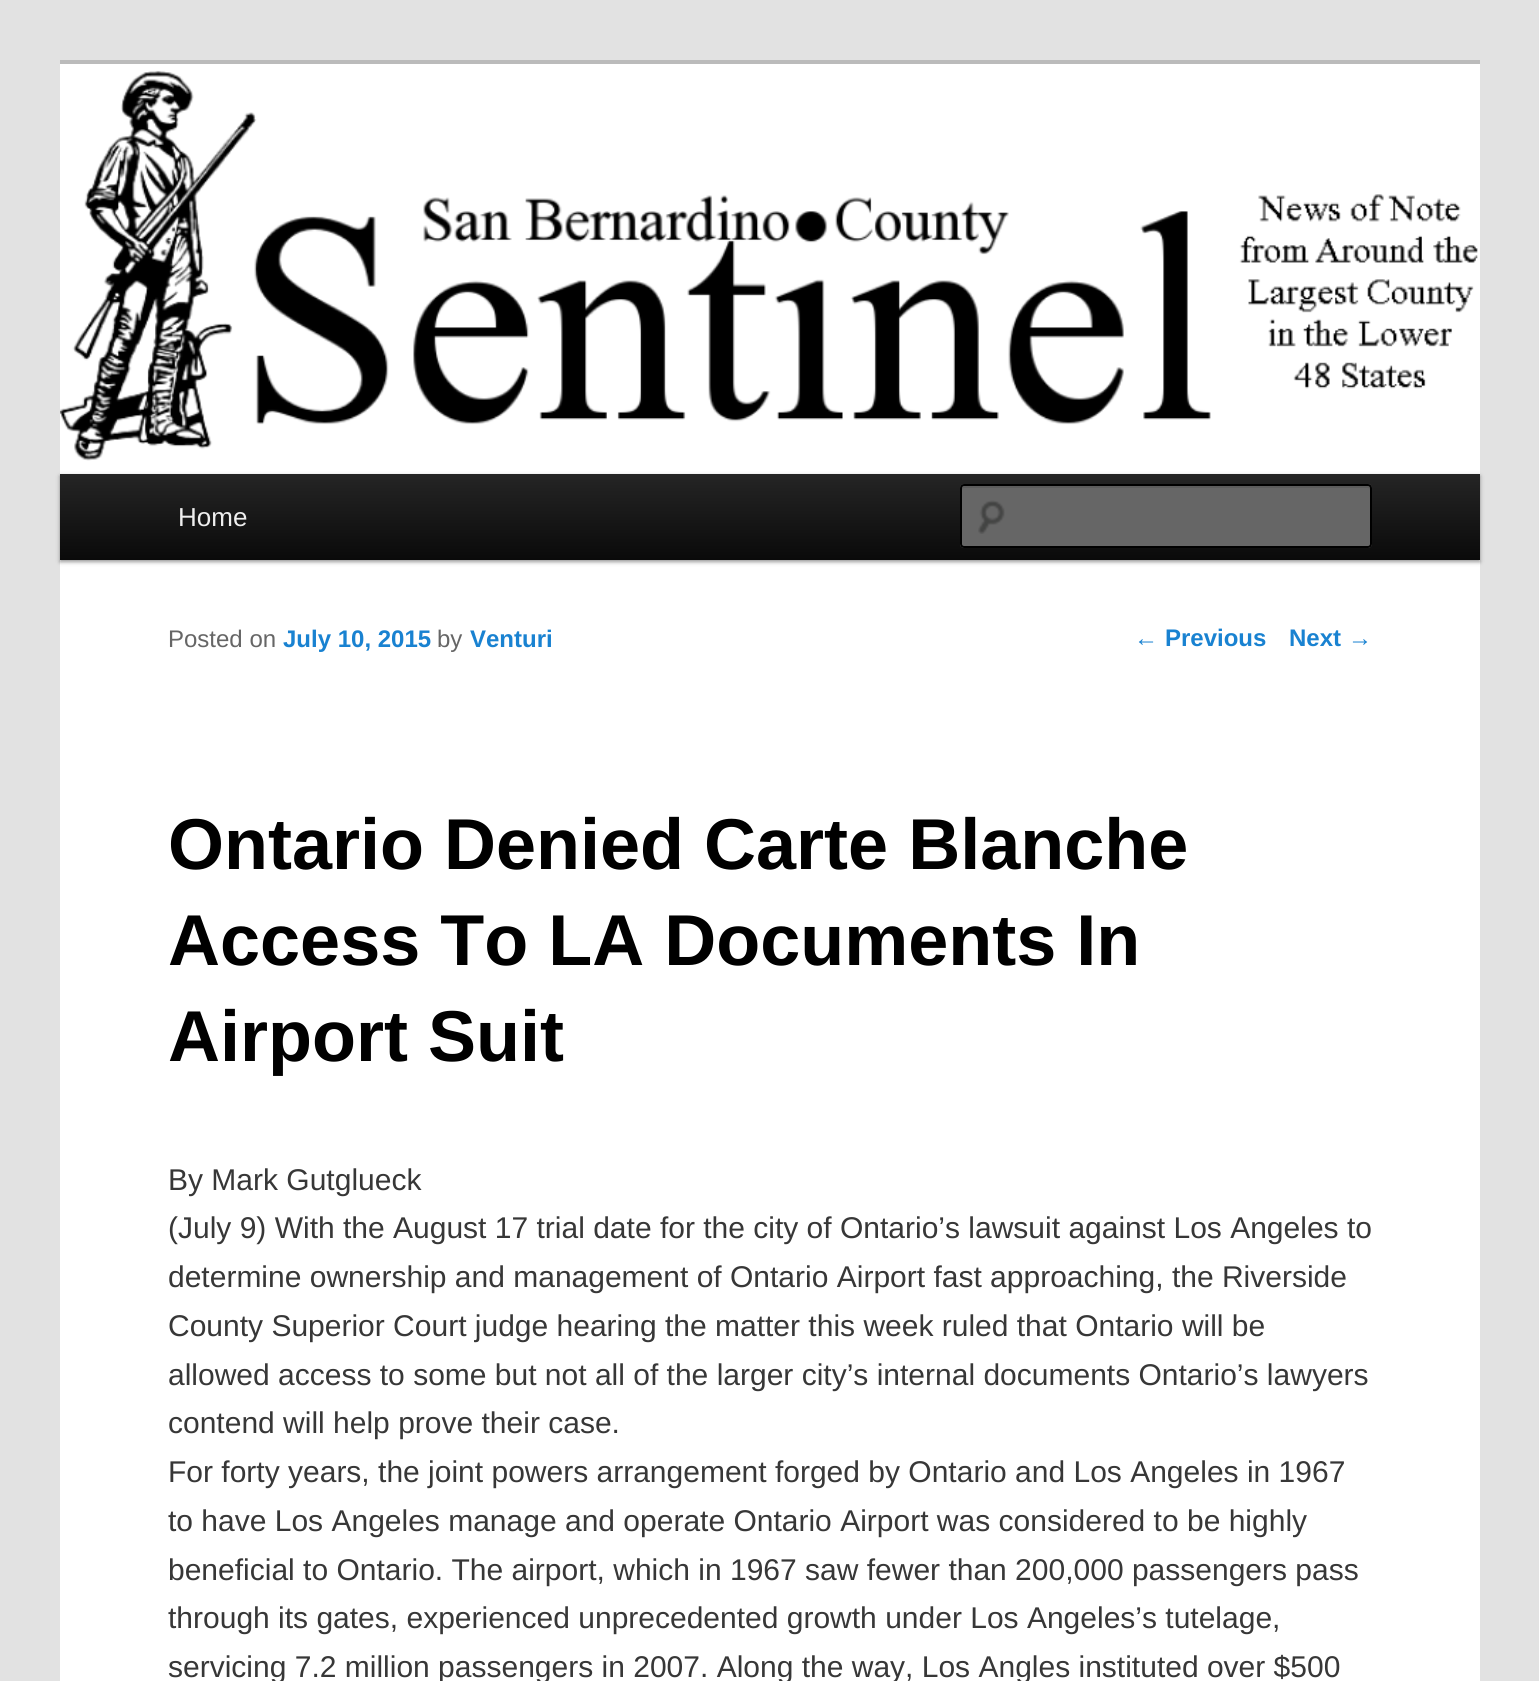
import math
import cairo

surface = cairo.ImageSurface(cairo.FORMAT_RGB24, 1539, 1681)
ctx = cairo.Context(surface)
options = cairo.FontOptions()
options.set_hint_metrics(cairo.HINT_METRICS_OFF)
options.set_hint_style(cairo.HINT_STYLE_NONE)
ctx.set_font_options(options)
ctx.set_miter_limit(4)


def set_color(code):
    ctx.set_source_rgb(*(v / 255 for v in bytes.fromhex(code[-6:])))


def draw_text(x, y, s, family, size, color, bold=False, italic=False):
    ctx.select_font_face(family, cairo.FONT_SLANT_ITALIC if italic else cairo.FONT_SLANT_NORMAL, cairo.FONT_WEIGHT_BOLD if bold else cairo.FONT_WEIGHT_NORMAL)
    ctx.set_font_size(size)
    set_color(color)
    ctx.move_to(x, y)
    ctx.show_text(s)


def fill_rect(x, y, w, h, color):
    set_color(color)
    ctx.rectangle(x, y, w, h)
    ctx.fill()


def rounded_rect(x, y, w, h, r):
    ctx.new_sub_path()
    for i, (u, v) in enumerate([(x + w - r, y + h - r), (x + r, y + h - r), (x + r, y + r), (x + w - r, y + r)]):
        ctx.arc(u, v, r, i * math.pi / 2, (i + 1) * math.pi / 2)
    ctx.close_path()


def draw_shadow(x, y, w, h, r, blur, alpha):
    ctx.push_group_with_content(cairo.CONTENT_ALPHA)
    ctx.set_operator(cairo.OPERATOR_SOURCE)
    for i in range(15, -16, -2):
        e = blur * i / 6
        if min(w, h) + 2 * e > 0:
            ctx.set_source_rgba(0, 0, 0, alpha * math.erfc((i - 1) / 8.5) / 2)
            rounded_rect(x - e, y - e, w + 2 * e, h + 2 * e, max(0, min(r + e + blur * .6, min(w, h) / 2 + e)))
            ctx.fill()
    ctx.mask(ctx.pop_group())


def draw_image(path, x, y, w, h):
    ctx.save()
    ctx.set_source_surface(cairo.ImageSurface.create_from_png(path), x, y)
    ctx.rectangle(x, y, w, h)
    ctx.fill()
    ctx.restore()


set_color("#e2e2e2")
ctx.paint()
fill_rect(60, 64, 1420, 1617, "#ffffff")
fill_rect(60, 60, 1420, 4, "#bbbbbb")
draw_image("assets/img1.png", 60, 70, 1418, 391)
set_color("#000000")
draw_shadow(60, 476, 1420, 86, 0, 2, 0.4)
gradient = cairo.LinearGradient(770, 474, 770, 560)
gradient.add_color_stop_rgba(0, 0.145, 0.145, 0.145, 1)
gradient.add_color_stop_rgba(1, 0.039, 0.039, 0.039, 1)
ctx.set_source(gradient)
ctx.rectangle(60, 474, 1420, 86)
ctx.fill()
draw_text(178, 526, "Home", "Liberation Sans", 26, "#eeeeee")
set_color("#666666")
rounded_rect(960, 484, 412, 64, 4)
ctx.fill()
draw_image("assets/img2.png", 978, 500, 27, 34)
set_color("#5c5c5c")
ctx.new_path()
ctx.move_to(964, 488)
ctx.line_to(1368, 488)
ctx.curve_to(1369, 488, 1370, 489, 1370, 490)
ctx.curve_to(1370, 488, 1370, 486, 1368, 486)
ctx.line_to(964, 486)
ctx.line_to(962, 487)
ctx.line_to(962, 490)
ctx.curve_to(962, 489, 963, 488, 964, 488)
ctx.close_path()
ctx.fill()
rounded_rect(961, 485, 410, 62, 3)
set_color("#000000")
ctx.stroke()
draw_text(1134, 646, "←", "Liberation Sans", 24, "#1982d1")
draw_text(1165, 646, "Previous", "Liberation Sans", 24, "#1982d1", bold=True)
draw_text(1289, 646, "Next", "Liberation Sans", 24, "#1982d1", bold=True)
draw_text(1348, 646, "→", "Liberation Sans", 24, "#1982d1")
draw_text(168, 647, "Posted on", "Liberation Sans", 24, "#666666")
draw_text(283, 647, "July 10, 2015", "Liberation Sans", 24, "#1982d1", bold=True)
draw_text(437, 647, "by", "Liberation Sans", 24, "#666666")
draw_text(470, 647, "Venturi", "Liberation Sans", 24, "#1982d1", bold=True)
draw_text(168, 869, "Ontario Denied Carte Blanche", "Liberation Sans", 72, "#000000", bold=True)
draw_text(168, 965, "Access To LA Documents In", "Liberation Sans", 72, "#000000", bold=True)
draw_text(168, 1061, "Airport Suit", "Liberation Sans", 72, "#000000", bold=True)
draw_text(168, 1190, "By Mark Gutglueck", "Liberation Sans", 30, "#373737")
draw_text(168, 1238, "(July 9) With the August 17 trial date for the city of Ontario’s lawsuit against Los Angeles to", "Liberation Sans", 30, "#373737")
draw_text(168, 1287, "determine ownership and management of Ontario Airport fast approaching, the Riverside", "Liberation Sans", 30, "#373737")
draw_text(168, 1336, "County Superior Court judge hearing the matter this week ruled that Ontario will be", "Liberation Sans", 30, "#373737")
draw_text(168, 1385, "allowed access to some but not all of the larger city’s internal documents Ontario’s lawyers", "Liberation Sans", 30, "#373737")
draw_text(168, 1433, "contend will help prove their case.", "Liberation Sans", 30, "#373737")
draw_text(168, 1482, "For forty years, the joint powers arrangement forged by Ontario and Los Angeles in 1967", "Liberation Sans", 30, "#373737")
draw_text(168, 1531, "to have Los Angeles manage and operate Ontario Airport was considered to be highly", "Liberation Sans", 30, "#373737")
draw_text(168, 1580, "beneficial to Ontario. The airport, which in 1967 saw fewer than 200,000 passengers pass", "Liberation Sans", 30, "#373737")
draw_text(168, 1628, "through its gates, experienced unprecedented growth under Los Angeles’s tutelage,", "Liberation Sans", 30, "#373737")
draw_text(168, 1677, "servicing 7.2 million passengers in 2007. Along the way, Los Angles instituted over $500", "Liberation Sans", 30, "#373737")
surface.write_to_png("output.png")
